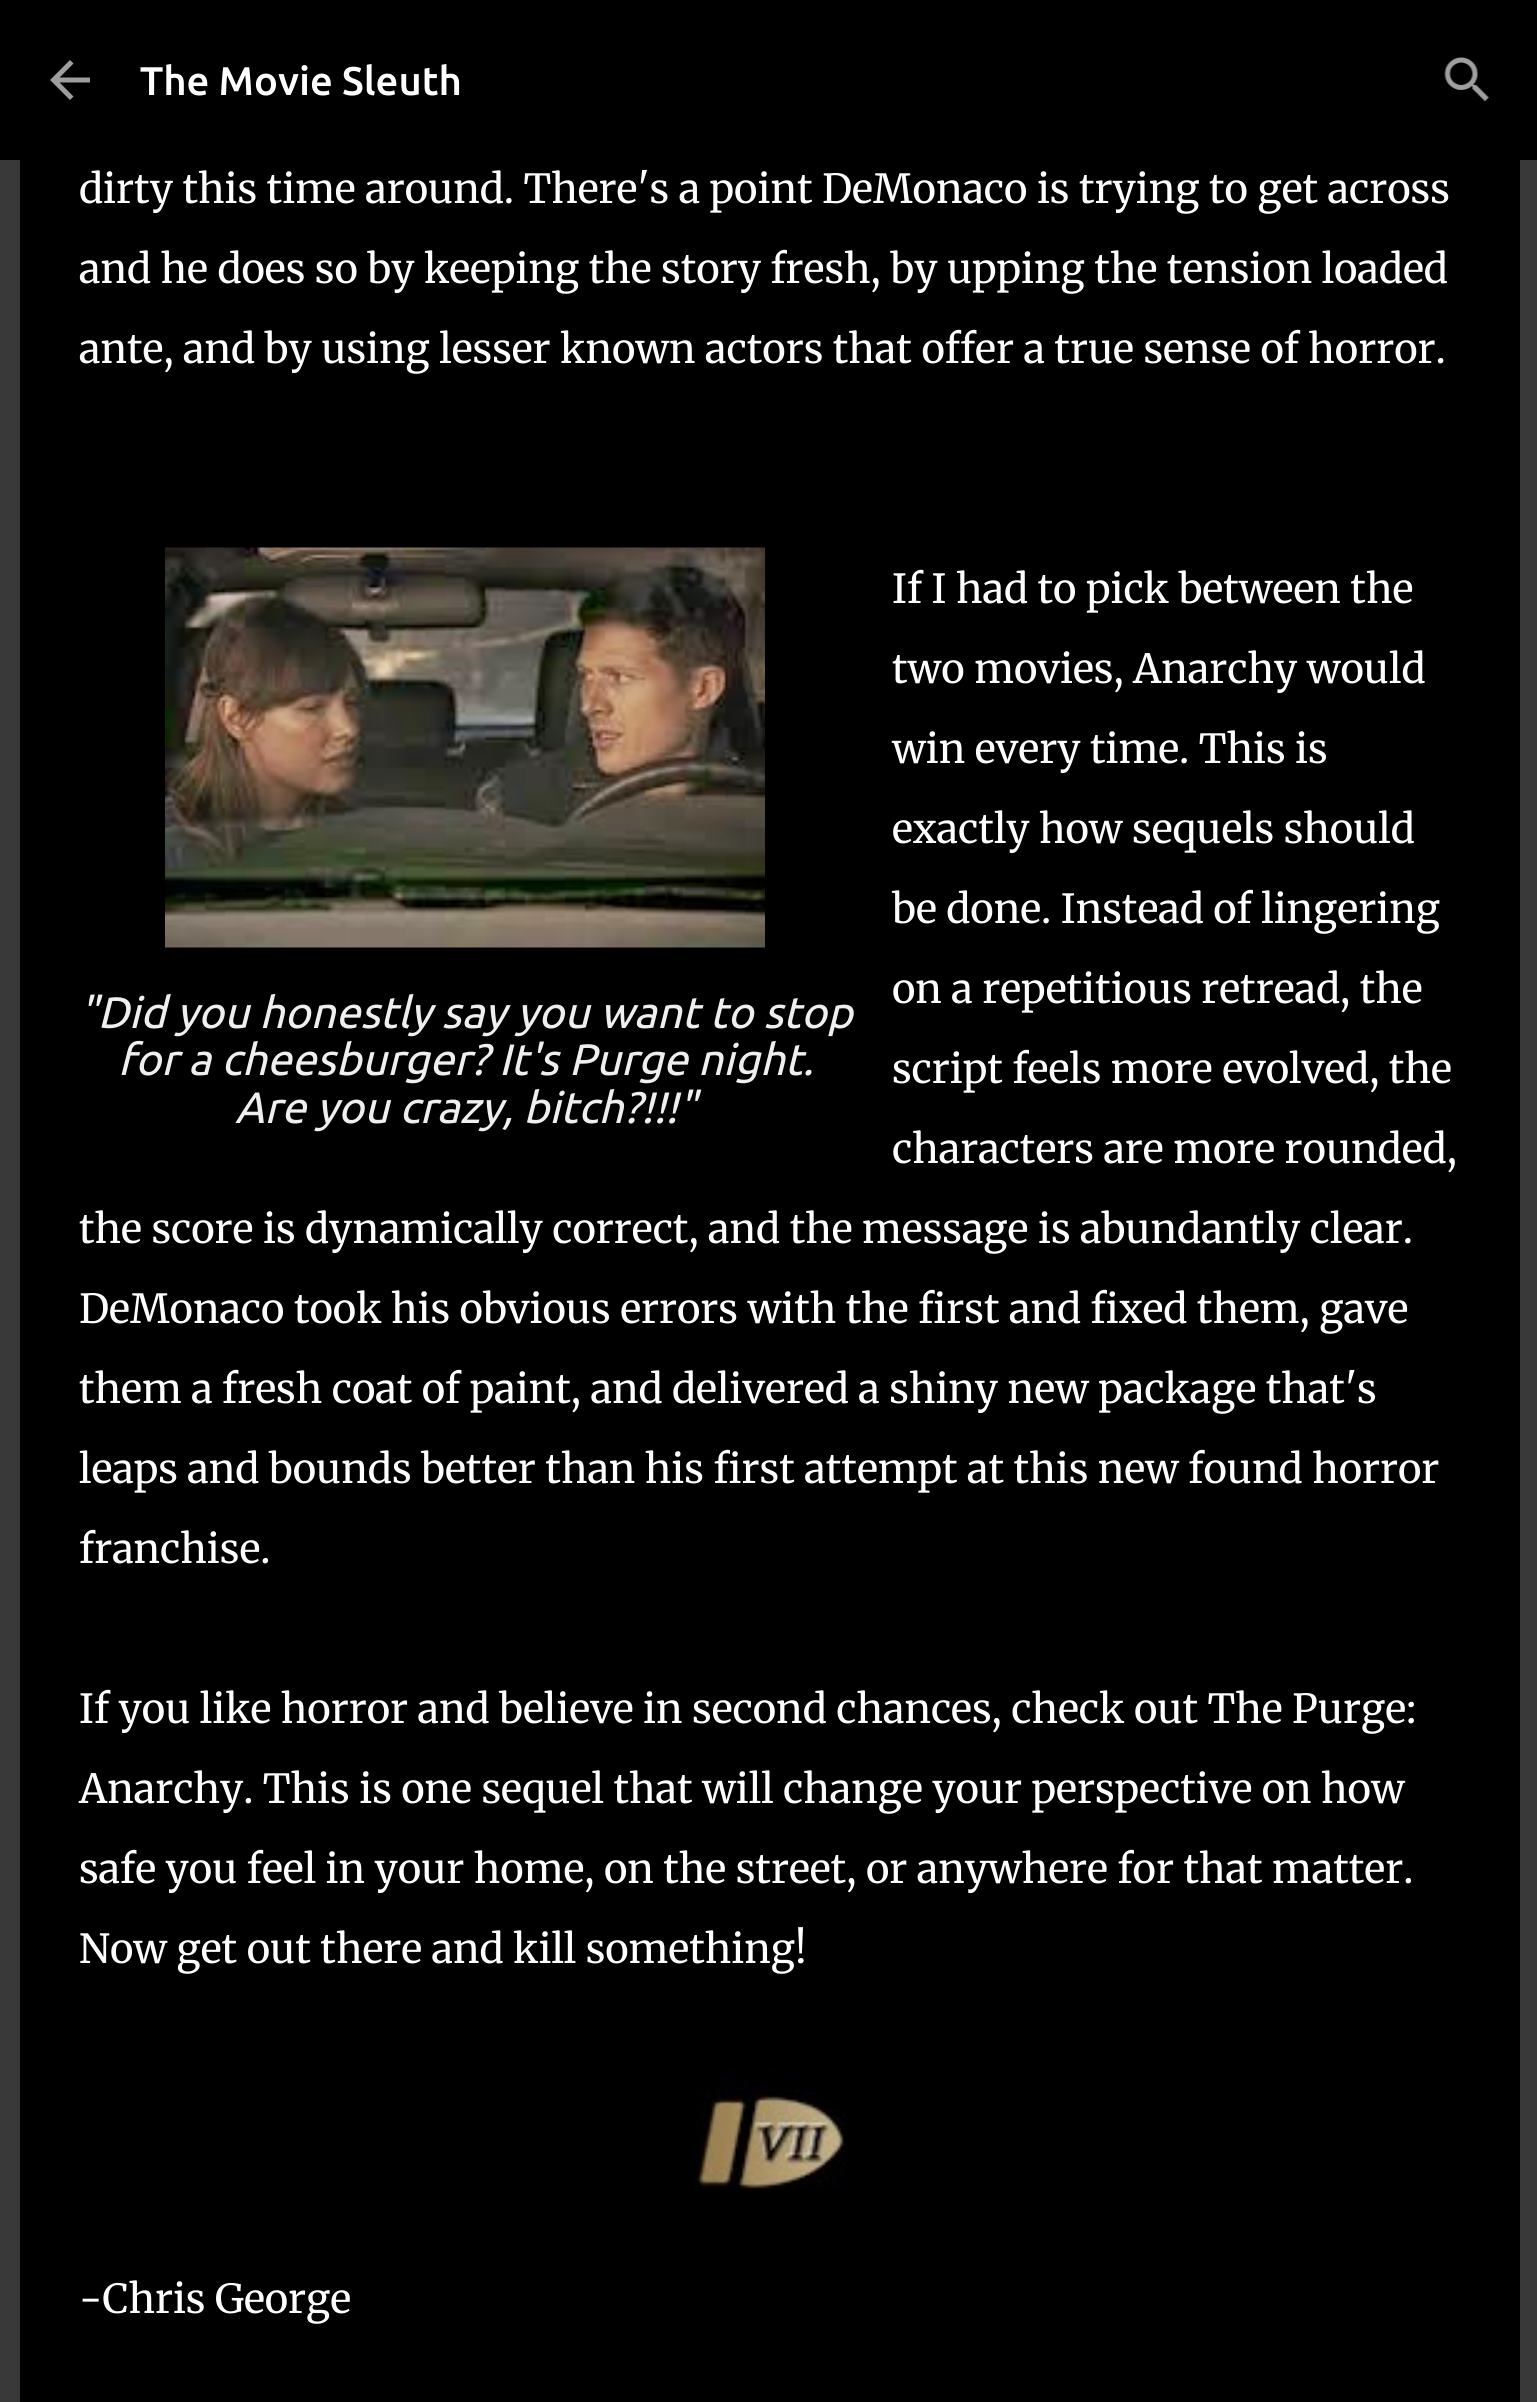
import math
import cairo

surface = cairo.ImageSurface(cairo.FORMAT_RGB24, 1537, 2402)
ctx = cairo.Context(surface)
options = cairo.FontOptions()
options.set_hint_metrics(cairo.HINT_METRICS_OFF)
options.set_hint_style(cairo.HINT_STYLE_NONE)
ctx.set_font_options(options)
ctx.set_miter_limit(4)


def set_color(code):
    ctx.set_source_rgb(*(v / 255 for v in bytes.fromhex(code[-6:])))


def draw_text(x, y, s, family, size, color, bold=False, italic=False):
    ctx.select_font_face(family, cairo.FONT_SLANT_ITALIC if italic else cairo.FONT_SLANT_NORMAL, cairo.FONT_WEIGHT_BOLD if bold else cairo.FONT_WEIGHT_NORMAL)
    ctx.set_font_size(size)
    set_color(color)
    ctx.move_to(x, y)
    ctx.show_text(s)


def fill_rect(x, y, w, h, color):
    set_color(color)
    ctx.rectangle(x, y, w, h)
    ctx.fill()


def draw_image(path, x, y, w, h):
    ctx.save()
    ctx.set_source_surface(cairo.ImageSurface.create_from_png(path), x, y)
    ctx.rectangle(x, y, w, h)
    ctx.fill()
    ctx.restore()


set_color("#393939")
ctx.paint()
fill_rect(0, 0, 1537, 160, "#000000")
draw_image("assets/img1.png", 50, 60, 40, 40)
draw_text(140, 95, "The Movie Sleuth", "Ubuntu Medium", 40, "#ffffff")
draw_image("assets/img2.png", 1444, 57, 45, 45)
fill_rect(20, 160, 1500, 2242, "#000000")
draw_text(79, 203, "dirty this time around. There's a point DeMonaco is trying to get across", "Merriweather", 40, "#ffffff")
draw_text(79, 283, "and he does so by keeping the story fresh, by upping the tension loaded", "Merriweather", 40, "#ffffff")
draw_text(79, 363, "ante, and by using lesser known actors that offer a true sense of horror.", "Merriweather", 40, "#ffffff")
draw_text(892, 603, "If I had to pick between the", "Merriweather", 40, "#ffffff")
draw_text(892, 683, "two movies, Anarchy would", "Merriweather", 40, "#ffffff")
draw_text(892, 763, "win every time. This is", "Merriweather", 40, "#ffffff")
draw_text(892, 843, "exactly how sequels should", "Merriweather", 40, "#ffffff")
draw_text(892, 923, "be done. Instead of lingering", "Merriweather", 40, "#ffffff")
draw_text(892, 1003, "on a repetitious retread, the", "Merriweather", 40, "#ffffff")
draw_text(892, 1083, "script feels more evolved, the", "Merriweather", 40, "#ffffff")
draw_text(892, 1163, "characters are more rounded,", "Merriweather", 40, "#ffffff")
draw_text(79, 1243, "the score is dynamically correct, and the message is abundantly clear.", "Merriweather", 40, "#ffffff")
draw_text(79, 1323, "DeMonaco took his obvious errors with the first and fixed them, gave", "Merriweather", 40, "#ffffff")
draw_text(79, 1403, "them a fresh coat of paint, and delivered a shiny new package that's", "Merriweather", 40, "#ffffff")
draw_text(79, 1483, "leaps and bounds better than his first attempt at this new found horror", "Merriweather", 40, "#ffffff")
draw_text(79, 1563, "franchise.", "Merriweather", 40, "#ffffff")
draw_image("assets/img3.png", 165, 547, 600, 401)
draw_text(79, 1028, "\"Did you honestly say you want to stop", "Ubuntu", 44, "#efefef", italic=True)
draw_text(118, 1075, "for a cheesburger? It's Purge night.", "Ubuntu", 44, "#efefef", italic=True)
draw_text(235, 1123, "Are you crazy, bitch?!!!\"", "Ubuntu", 44, "#efefef", italic=True)
draw_text(79, 1723, "If you like horror and believe in second chances, check out The Purge:", "Merriweather", 40, "#ffffff")
draw_text(79, 1803, "Anarchy. This is one sequel that will change your perspective on how", "Merriweather", 40, "#ffffff")
draw_text(79, 1883, "safe you feel in your home, on the street, or anywhere for that matter.", "Merriweather", 40, "#ffffff")
draw_text(79, 1963, "Now get out there and kill something!", "Merriweather", 40, "#ffffff")
draw_image("assets/img4.png", 695, 2068, 150, 121)
draw_text(79, 2313, "-Chris George", "Merriweather", 40, "#ffffff")
surface.write_to_png("output.png")
